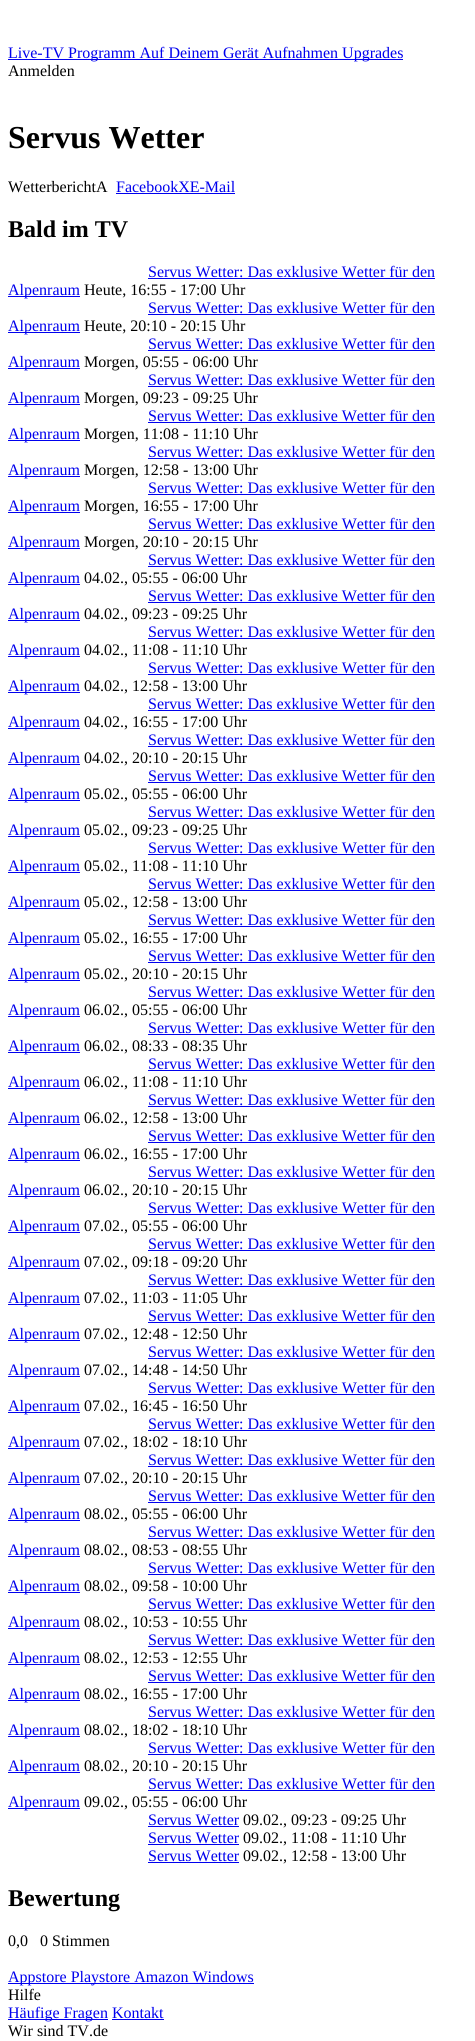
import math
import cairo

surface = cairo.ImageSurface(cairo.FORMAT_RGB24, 475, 2041)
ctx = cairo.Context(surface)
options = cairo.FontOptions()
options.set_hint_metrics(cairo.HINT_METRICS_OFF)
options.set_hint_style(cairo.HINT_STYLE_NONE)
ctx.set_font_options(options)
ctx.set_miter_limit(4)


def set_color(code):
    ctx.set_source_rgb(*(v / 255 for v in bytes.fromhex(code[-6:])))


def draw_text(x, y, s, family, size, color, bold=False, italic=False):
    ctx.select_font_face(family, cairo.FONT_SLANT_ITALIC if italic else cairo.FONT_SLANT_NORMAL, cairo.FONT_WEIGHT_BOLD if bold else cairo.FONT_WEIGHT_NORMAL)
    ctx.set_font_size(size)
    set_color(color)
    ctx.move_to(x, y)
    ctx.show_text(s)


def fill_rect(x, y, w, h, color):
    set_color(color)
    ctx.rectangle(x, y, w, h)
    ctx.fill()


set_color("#ffffff")
ctx.paint()
fill_rect(8, 59, 395, 1, "#0000ee")
draw_text(8, 58, "Live-TV Programm Auf Deinem Gerät Aufnahmen Upgrades", "Liberation Serif", 16, "#0000ee")
draw_text(8, 76, "Anmelden", "Liberation Serif", 16, "#000000")
draw_text(8, 148, "Servus Wetter", "Liberation Serif", 32, "#000000", bold=True)
draw_text(8, 192, "WetterberichtA", "Liberation Serif", 16, "#000000")
draw_text(116, 192, "FacebookXE-Mail", "Liberation Serif", 16, "#0000ee")
fill_rect(116, 193, 119, 1, "#0000ee")
draw_text(8, 237, "Bald im TV", "Liberation Serif", 24, "#000000", bold=True)
draw_text(148, 277, "Servus Wetter: Das exklusive Wetter für den", "Liberation Serif", 16, "#0000ee")
fill_rect(148, 278, 287, 1, "#0000ee")
fill_rect(8, 296, 72, 1, "#0000ee")
draw_text(8, 295, "Alpenraum", "Liberation Serif", 16, "#0000ee")
draw_text(84, 295, "Heute, 16:55 - 17:00 Uhr", "Liberation Serif", 16, "#000000")
draw_text(148, 313, "Servus Wetter: Das exklusive Wetter für den", "Liberation Serif", 16, "#0000ee")
fill_rect(148, 314, 287, 1, "#0000ee")
fill_rect(8, 332, 72, 1, "#0000ee")
draw_text(8, 331, "Alpenraum", "Liberation Serif", 16, "#0000ee")
draw_text(84, 331, "Heute, 20:10 - 20:15 Uhr", "Liberation Serif", 16, "#000000")
draw_text(148, 349, "Servus Wetter: Das exklusive Wetter für den", "Liberation Serif", 16, "#0000ee")
fill_rect(148, 350, 287, 1, "#0000ee")
fill_rect(8, 368, 72, 1, "#0000ee")
draw_text(8, 367, "Alpenraum", "Liberation Serif", 16, "#0000ee")
draw_text(84, 367, "Morgen, 05:55 - 06:00 Uhr", "Liberation Serif", 16, "#000000")
draw_text(148, 385, "Servus Wetter: Das exklusive Wetter für den", "Liberation Serif", 16, "#0000ee")
fill_rect(148, 386, 287, 1, "#0000ee")
fill_rect(8, 404, 72, 1, "#0000ee")
draw_text(8, 403, "Alpenraum", "Liberation Serif", 16, "#0000ee")
draw_text(84, 403, "Morgen, 09:23 - 09:25 Uhr", "Liberation Serif", 16, "#000000")
draw_text(148, 421, "Servus Wetter: Das exklusive Wetter für den", "Liberation Serif", 16, "#0000ee")
fill_rect(148, 422, 287, 1, "#0000ee")
fill_rect(8, 440, 72, 1, "#0000ee")
draw_text(8, 439, "Alpenraum", "Liberation Serif", 16, "#0000ee")
draw_text(84, 439, "Morgen, 11:08 - 11:10 Uhr", "Liberation Serif", 16, "#000000")
draw_text(148, 457, "Servus Wetter: Das exklusive Wetter für den", "Liberation Serif", 16, "#0000ee")
fill_rect(148, 458, 287, 1, "#0000ee")
fill_rect(8, 476, 72, 1, "#0000ee")
draw_text(8, 475, "Alpenraum", "Liberation Serif", 16, "#0000ee")
draw_text(84, 475, "Morgen, 12:58 - 13:00 Uhr", "Liberation Serif", 16, "#000000")
draw_text(148, 493, "Servus Wetter: Das exklusive Wetter für den", "Liberation Serif", 16, "#0000ee")
fill_rect(148, 494, 287, 1, "#0000ee")
fill_rect(8, 512, 72, 1, "#0000ee")
draw_text(8, 511, "Alpenraum", "Liberation Serif", 16, "#0000ee")
draw_text(84, 511, "Morgen, 16:55 - 17:00 Uhr", "Liberation Serif", 16, "#000000")
draw_text(148, 529, "Servus Wetter: Das exklusive Wetter für den", "Liberation Serif", 16, "#0000ee")
fill_rect(148, 530, 287, 1, "#0000ee")
fill_rect(8, 548, 72, 1, "#0000ee")
draw_text(8, 547, "Alpenraum", "Liberation Serif", 16, "#0000ee")
draw_text(84, 547, "Morgen, 20:10 - 20:15 Uhr", "Liberation Serif", 16, "#000000")
draw_text(148, 565, "Servus Wetter: Das exklusive Wetter für den", "Liberation Serif", 16, "#0000ee")
fill_rect(148, 566, 287, 1, "#0000ee")
fill_rect(8, 584, 72, 1, "#0000ee")
draw_text(8, 583, "Alpenraum", "Liberation Serif", 16, "#0000ee")
draw_text(84, 583, "04.02., 05:55 - 06:00 Uhr", "Liberation Serif", 16, "#000000")
draw_text(148, 601, "Servus Wetter: Das exklusive Wetter für den", "Liberation Serif", 16, "#0000ee")
fill_rect(148, 602, 287, 1, "#0000ee")
fill_rect(8, 620, 72, 1, "#0000ee")
draw_text(8, 619, "Alpenraum", "Liberation Serif", 16, "#0000ee")
draw_text(84, 619, "04.02., 09:23 - 09:25 Uhr", "Liberation Serif", 16, "#000000")
draw_text(148, 637, "Servus Wetter: Das exklusive Wetter für den", "Liberation Serif", 16, "#0000ee")
fill_rect(148, 638, 287, 1, "#0000ee")
fill_rect(8, 656, 72, 1, "#0000ee")
draw_text(8, 655, "Alpenraum", "Liberation Serif", 16, "#0000ee")
draw_text(84, 655, "04.02., 11:08 - 11:10 Uhr", "Liberation Serif", 16, "#000000")
draw_text(148, 673, "Servus Wetter: Das exklusive Wetter für den", "Liberation Serif", 16, "#0000ee")
fill_rect(148, 674, 287, 1, "#0000ee")
fill_rect(8, 692, 72, 1, "#0000ee")
draw_text(8, 691, "Alpenraum", "Liberation Serif", 16, "#0000ee")
draw_text(84, 691, "04.02., 12:58 - 13:00 Uhr", "Liberation Serif", 16, "#000000")
draw_text(148, 709, "Servus Wetter: Das exklusive Wetter für den", "Liberation Serif", 16, "#0000ee")
fill_rect(148, 710, 287, 1, "#0000ee")
fill_rect(8, 728, 72, 1, "#0000ee")
draw_text(8, 727, "Alpenraum", "Liberation Serif", 16, "#0000ee")
draw_text(84, 727, "04.02., 16:55 - 17:00 Uhr", "Liberation Serif", 16, "#000000")
draw_text(148, 745, "Servus Wetter: Das exklusive Wetter für den", "Liberation Serif", 16, "#0000ee")
fill_rect(148, 746, 287, 1, "#0000ee")
fill_rect(8, 764, 72, 1, "#0000ee")
draw_text(8, 763, "Alpenraum", "Liberation Serif", 16, "#0000ee")
draw_text(84, 763, "04.02., 20:10 - 20:15 Uhr", "Liberation Serif", 16, "#000000")
draw_text(148, 781, "Servus Wetter: Das exklusive Wetter für den", "Liberation Serif", 16, "#0000ee")
fill_rect(148, 782, 287, 1, "#0000ee")
fill_rect(8, 800, 72, 1, "#0000ee")
draw_text(8, 799, "Alpenraum", "Liberation Serif", 16, "#0000ee")
draw_text(84, 799, "05.02., 05:55 - 06:00 Uhr", "Liberation Serif", 16, "#000000")
draw_text(148, 817, "Servus Wetter: Das exklusive Wetter für den", "Liberation Serif", 16, "#0000ee")
fill_rect(148, 818, 287, 1, "#0000ee")
fill_rect(8, 836, 72, 1, "#0000ee")
draw_text(8, 835, "Alpenraum", "Liberation Serif", 16, "#0000ee")
draw_text(84, 835, "05.02., 09:23 - 09:25 Uhr", "Liberation Serif", 16, "#000000")
draw_text(148, 853, "Servus Wetter: Das exklusive Wetter für den", "Liberation Serif", 16, "#0000ee")
fill_rect(148, 854, 287, 1, "#0000ee")
fill_rect(8, 872, 72, 1, "#0000ee")
draw_text(8, 871, "Alpenraum", "Liberation Serif", 16, "#0000ee")
draw_text(84, 871, "05.02., 11:08 - 11:10 Uhr", "Liberation Serif", 16, "#000000")
draw_text(148, 889, "Servus Wetter: Das exklusive Wetter für den", "Liberation Serif", 16, "#0000ee")
fill_rect(148, 890, 287, 1, "#0000ee")
fill_rect(8, 908, 72, 1, "#0000ee")
draw_text(8, 907, "Alpenraum", "Liberation Serif", 16, "#0000ee")
draw_text(84, 907, "05.02., 12:58 - 13:00 Uhr", "Liberation Serif", 16, "#000000")
draw_text(148, 925, "Servus Wetter: Das exklusive Wetter für den", "Liberation Serif", 16, "#0000ee")
fill_rect(148, 926, 287, 1, "#0000ee")
fill_rect(8, 944, 72, 1, "#0000ee")
draw_text(8, 943, "Alpenraum", "Liberation Serif", 16, "#0000ee")
draw_text(84, 943, "05.02., 16:55 - 17:00 Uhr", "Liberation Serif", 16, "#000000")
draw_text(148, 961, "Servus Wetter: Das exklusive Wetter für den", "Liberation Serif", 16, "#0000ee")
fill_rect(148, 962, 287, 1, "#0000ee")
fill_rect(8, 980, 72, 1, "#0000ee")
draw_text(8, 979, "Alpenraum", "Liberation Serif", 16, "#0000ee")
draw_text(84, 979, "05.02., 20:10 - 20:15 Uhr", "Liberation Serif", 16, "#000000")
draw_text(148, 997, "Servus Wetter: Das exklusive Wetter für den", "Liberation Serif", 16, "#0000ee")
fill_rect(148, 998, 287, 1, "#0000ee")
fill_rect(8, 1016, 72, 1, "#0000ee")
draw_text(8, 1015, "Alpenraum", "Liberation Serif", 16, "#0000ee")
draw_text(84, 1015, "06.02., 05:55 - 06:00 Uhr", "Liberation Serif", 16, "#000000")
draw_text(148, 1033, "Servus Wetter: Das exklusive Wetter für den", "Liberation Serif", 16, "#0000ee")
fill_rect(148, 1034, 287, 1, "#0000ee")
fill_rect(8, 1052, 72, 1, "#0000ee")
draw_text(8, 1051, "Alpenraum", "Liberation Serif", 16, "#0000ee")
draw_text(84, 1051, "06.02., 08:33 - 08:35 Uhr", "Liberation Serif", 16, "#000000")
draw_text(148, 1069, "Servus Wetter: Das exklusive Wetter für den", "Liberation Serif", 16, "#0000ee")
fill_rect(148, 1070, 287, 1, "#0000ee")
fill_rect(8, 1088, 72, 1, "#0000ee")
draw_text(8, 1087, "Alpenraum", "Liberation Serif", 16, "#0000ee")
draw_text(84, 1087, "06.02., 11:08 - 11:10 Uhr", "Liberation Serif", 16, "#000000")
draw_text(148, 1105, "Servus Wetter: Das exklusive Wetter für den", "Liberation Serif", 16, "#0000ee")
fill_rect(148, 1106, 287, 1, "#0000ee")
fill_rect(8, 1124, 72, 1, "#0000ee")
draw_text(8, 1123, "Alpenraum", "Liberation Serif", 16, "#0000ee")
draw_text(84, 1123, "06.02., 12:58 - 13:00 Uhr", "Liberation Serif", 16, "#000000")
draw_text(148, 1141, "Servus Wetter: Das exklusive Wetter für den", "Liberation Serif", 16, "#0000ee")
fill_rect(148, 1142, 287, 1, "#0000ee")
fill_rect(8, 1160, 72, 1, "#0000ee")
draw_text(8, 1159, "Alpenraum", "Liberation Serif", 16, "#0000ee")
draw_text(84, 1159, "06.02., 16:55 - 17:00 Uhr", "Liberation Serif", 16, "#000000")
draw_text(148, 1177, "Servus Wetter: Das exklusive Wetter für den", "Liberation Serif", 16, "#0000ee")
fill_rect(148, 1178, 287, 1, "#0000ee")
fill_rect(8, 1196, 72, 1, "#0000ee")
draw_text(8, 1195, "Alpenraum", "Liberation Serif", 16, "#0000ee")
draw_text(84, 1195, "06.02., 20:10 - 20:15 Uhr", "Liberation Serif", 16, "#000000")
draw_text(148, 1213, "Servus Wetter: Das exklusive Wetter für den", "Liberation Serif", 16, "#0000ee")
fill_rect(148, 1214, 287, 1, "#0000ee")
fill_rect(8, 1232, 72, 1, "#0000ee")
draw_text(8, 1231, "Alpenraum", "Liberation Serif", 16, "#0000ee")
draw_text(84, 1231, "07.02., 05:55 - 06:00 Uhr", "Liberation Serif", 16, "#000000")
draw_text(148, 1249, "Servus Wetter: Das exklusive Wetter für den", "Liberation Serif", 16, "#0000ee")
fill_rect(148, 1250, 287, 1, "#0000ee")
fill_rect(8, 1268, 72, 1, "#0000ee")
draw_text(8, 1267, "Alpenraum", "Liberation Serif", 16, "#0000ee")
draw_text(84, 1267, "07.02., 09:18 - 09:20 Uhr", "Liberation Serif", 16, "#000000")
draw_text(148, 1285, "Servus Wetter: Das exklusive Wetter für den", "Liberation Serif", 16, "#0000ee")
fill_rect(148, 1286, 287, 1, "#0000ee")
fill_rect(8, 1304, 72, 1, "#0000ee")
draw_text(8, 1303, "Alpenraum", "Liberation Serif", 16, "#0000ee")
draw_text(84, 1303, "07.02., 11:03 - 11:05 Uhr", "Liberation Serif", 16, "#000000")
draw_text(148, 1321, "Servus Wetter: Das exklusive Wetter für den", "Liberation Serif", 16, "#0000ee")
fill_rect(148, 1322, 287, 1, "#0000ee")
fill_rect(8, 1340, 72, 1, "#0000ee")
draw_text(8, 1339, "Alpenraum", "Liberation Serif", 16, "#0000ee")
draw_text(84, 1339, "07.02., 12:48 - 12:50 Uhr", "Liberation Serif", 16, "#000000")
draw_text(148, 1357, "Servus Wetter: Das exklusive Wetter für den", "Liberation Serif", 16, "#0000ee")
fill_rect(148, 1358, 287, 1, "#0000ee")
fill_rect(8, 1376, 72, 1, "#0000ee")
draw_text(8, 1375, "Alpenraum", "Liberation Serif", 16, "#0000ee")
draw_text(84, 1375, "07.02., 14:48 - 14:50 Uhr", "Liberation Serif", 16, "#000000")
draw_text(148, 1393, "Servus Wetter: Das exklusive Wetter für den", "Liberation Serif", 16, "#0000ee")
fill_rect(148, 1394, 287, 1, "#0000ee")
fill_rect(8, 1412, 72, 1, "#0000ee")
draw_text(8, 1411, "Alpenraum", "Liberation Serif", 16, "#0000ee")
draw_text(84, 1411, "07.02., 16:45 - 16:50 Uhr", "Liberation Serif", 16, "#000000")
draw_text(148, 1429, "Servus Wetter: Das exklusive Wetter für den", "Liberation Serif", 16, "#0000ee")
fill_rect(148, 1430, 287, 1, "#0000ee")
fill_rect(8, 1448, 72, 1, "#0000ee")
draw_text(8, 1447, "Alpenraum", "Liberation Serif", 16, "#0000ee")
draw_text(84, 1447, "07.02., 18:02 - 18:10 Uhr", "Liberation Serif", 16, "#000000")
draw_text(148, 1465, "Servus Wetter: Das exklusive Wetter für den", "Liberation Serif", 16, "#0000ee")
fill_rect(148, 1466, 287, 1, "#0000ee")
fill_rect(8, 1484, 72, 1, "#0000ee")
draw_text(8, 1483, "Alpenraum", "Liberation Serif", 16, "#0000ee")
draw_text(84, 1483, "07.02., 20:10 - 20:15 Uhr", "Liberation Serif", 16, "#000000")
draw_text(148, 1501, "Servus Wetter: Das exklusive Wetter für den", "Liberation Serif", 16, "#0000ee")
fill_rect(148, 1502, 287, 1, "#0000ee")
fill_rect(8, 1520, 72, 1, "#0000ee")
draw_text(8, 1519, "Alpenraum", "Liberation Serif", 16, "#0000ee")
draw_text(84, 1519, "08.02., 05:55 - 06:00 Uhr", "Liberation Serif", 16, "#000000")
draw_text(148, 1537, "Servus Wetter: Das exklusive Wetter für den", "Liberation Serif", 16, "#0000ee")
fill_rect(148, 1538, 287, 1, "#0000ee")
fill_rect(8, 1556, 72, 1, "#0000ee")
draw_text(8, 1555, "Alpenraum", "Liberation Serif", 16, "#0000ee")
draw_text(84, 1555, "08.02., 08:53 - 08:55 Uhr", "Liberation Serif", 16, "#000000")
draw_text(148, 1573, "Servus Wetter: Das exklusive Wetter für den", "Liberation Serif", 16, "#0000ee")
fill_rect(148, 1574, 287, 1, "#0000ee")
fill_rect(8, 1592, 72, 1, "#0000ee")
draw_text(8, 1591, "Alpenraum", "Liberation Serif", 16, "#0000ee")
draw_text(84, 1591, "08.02., 09:58 - 10:00 Uhr", "Liberation Serif", 16, "#000000")
draw_text(148, 1609, "Servus Wetter: Das exklusive Wetter für den", "Liberation Serif", 16, "#0000ee")
fill_rect(148, 1610, 287, 1, "#0000ee")
fill_rect(8, 1628, 72, 1, "#0000ee")
draw_text(8, 1627, "Alpenraum", "Liberation Serif", 16, "#0000ee")
draw_text(84, 1627, "08.02., 10:53 - 10:55 Uhr", "Liberation Serif", 16, "#000000")
draw_text(148, 1645, "Servus Wetter: Das exklusive Wetter für den", "Liberation Serif", 16, "#0000ee")
fill_rect(148, 1646, 287, 1, "#0000ee")
fill_rect(8, 1664, 72, 1, "#0000ee")
draw_text(8, 1663, "Alpenraum", "Liberation Serif", 16, "#0000ee")
draw_text(84, 1663, "08.02., 12:53 - 12:55 Uhr", "Liberation Serif", 16, "#000000")
draw_text(148, 1681, "Servus Wetter: Das exklusive Wetter für den", "Liberation Serif", 16, "#0000ee")
fill_rect(148, 1682, 287, 1, "#0000ee")
fill_rect(8, 1700, 72, 1, "#0000ee")
draw_text(8, 1699, "Alpenraum", "Liberation Serif", 16, "#0000ee")
draw_text(84, 1699, "08.02., 16:55 - 17:00 Uhr", "Liberation Serif", 16, "#000000")
draw_text(148, 1717, "Servus Wetter: Das exklusive Wetter für den", "Liberation Serif", 16, "#0000ee")
fill_rect(148, 1718, 287, 1, "#0000ee")
fill_rect(8, 1736, 72, 1, "#0000ee")
draw_text(8, 1735, "Alpenraum", "Liberation Serif", 16, "#0000ee")
draw_text(84, 1735, "08.02., 18:02 - 18:10 Uhr", "Liberation Serif", 16, "#000000")
draw_text(148, 1753, "Servus Wetter: Das exklusive Wetter für den", "Liberation Serif", 16, "#0000ee")
fill_rect(148, 1754, 287, 1, "#0000ee")
fill_rect(8, 1772, 72, 1, "#0000ee")
draw_text(8, 1771, "Alpenraum", "Liberation Serif", 16, "#0000ee")
draw_text(84, 1771, "08.02., 20:10 - 20:15 Uhr", "Liberation Serif", 16, "#000000")
draw_text(148, 1789, "Servus Wetter: Das exklusive Wetter für den", "Liberation Serif", 16, "#0000ee")
fill_rect(148, 1790, 287, 1, "#0000ee")
fill_rect(8, 1808, 72, 1, "#0000ee")
draw_text(8, 1807, "Alpenraum", "Liberation Serif", 16, "#0000ee")
draw_text(84, 1807, "09.02., 05:55 - 06:00 Uhr", "Liberation Serif", 16, "#000000")
draw_text(148, 1825, "Servus Wetter", "Liberation Serif", 16, "#0000ee")
fill_rect(148, 1826, 91, 1, "#0000ee")
draw_text(243, 1825, "09.02., 09:23 - 09:25 Uhr", "Liberation Serif", 16, "#000000")
draw_text(148, 1843, "Servus Wetter", "Liberation Serif", 16, "#0000ee")
fill_rect(148, 1844, 91, 1, "#0000ee")
draw_text(243, 1843, "09.02., 11:08 - 11:10 Uhr", "Liberation Serif", 16, "#000000")
draw_text(148, 1861, "Servus Wetter", "Liberation Serif", 16, "#0000ee")
fill_rect(148, 1862, 91, 1, "#0000ee")
draw_text(243, 1861, "09.02., 12:58 - 13:00 Uhr", "Liberation Serif", 16, "#000000")
draw_text(8, 1906, "Bewertung", "Liberation Serif", 24, "#000000", bold=True)
draw_text(8, 1946, "0,0", "Liberation Serif", 16, "#000000")
draw_text(40, 1946, "0 Stimmen", "Liberation Serif", 16, "#000000")
fill_rect(8, 1983, 246, 1, "#0000ee")
draw_text(8, 1982, "Appstore Playstore Amazon Windows", "Liberation Serif", 16, "#0000ee")
draw_text(8, 2000, "Hilfe", "Liberation Serif", 16, "#000000")
fill_rect(8, 2019, 100, 1, "#0000ee")
draw_text(8, 2018, "Häufige Fragen Kontakt", "Liberation Serif", 16, "#0000ee")
fill_rect(112, 2019, 52, 1, "#0000ee")
draw_text(8, 2036, "Wir sind TV.de", "Liberation Serif", 16, "#000000")
surface.write_to_png("output.png")
